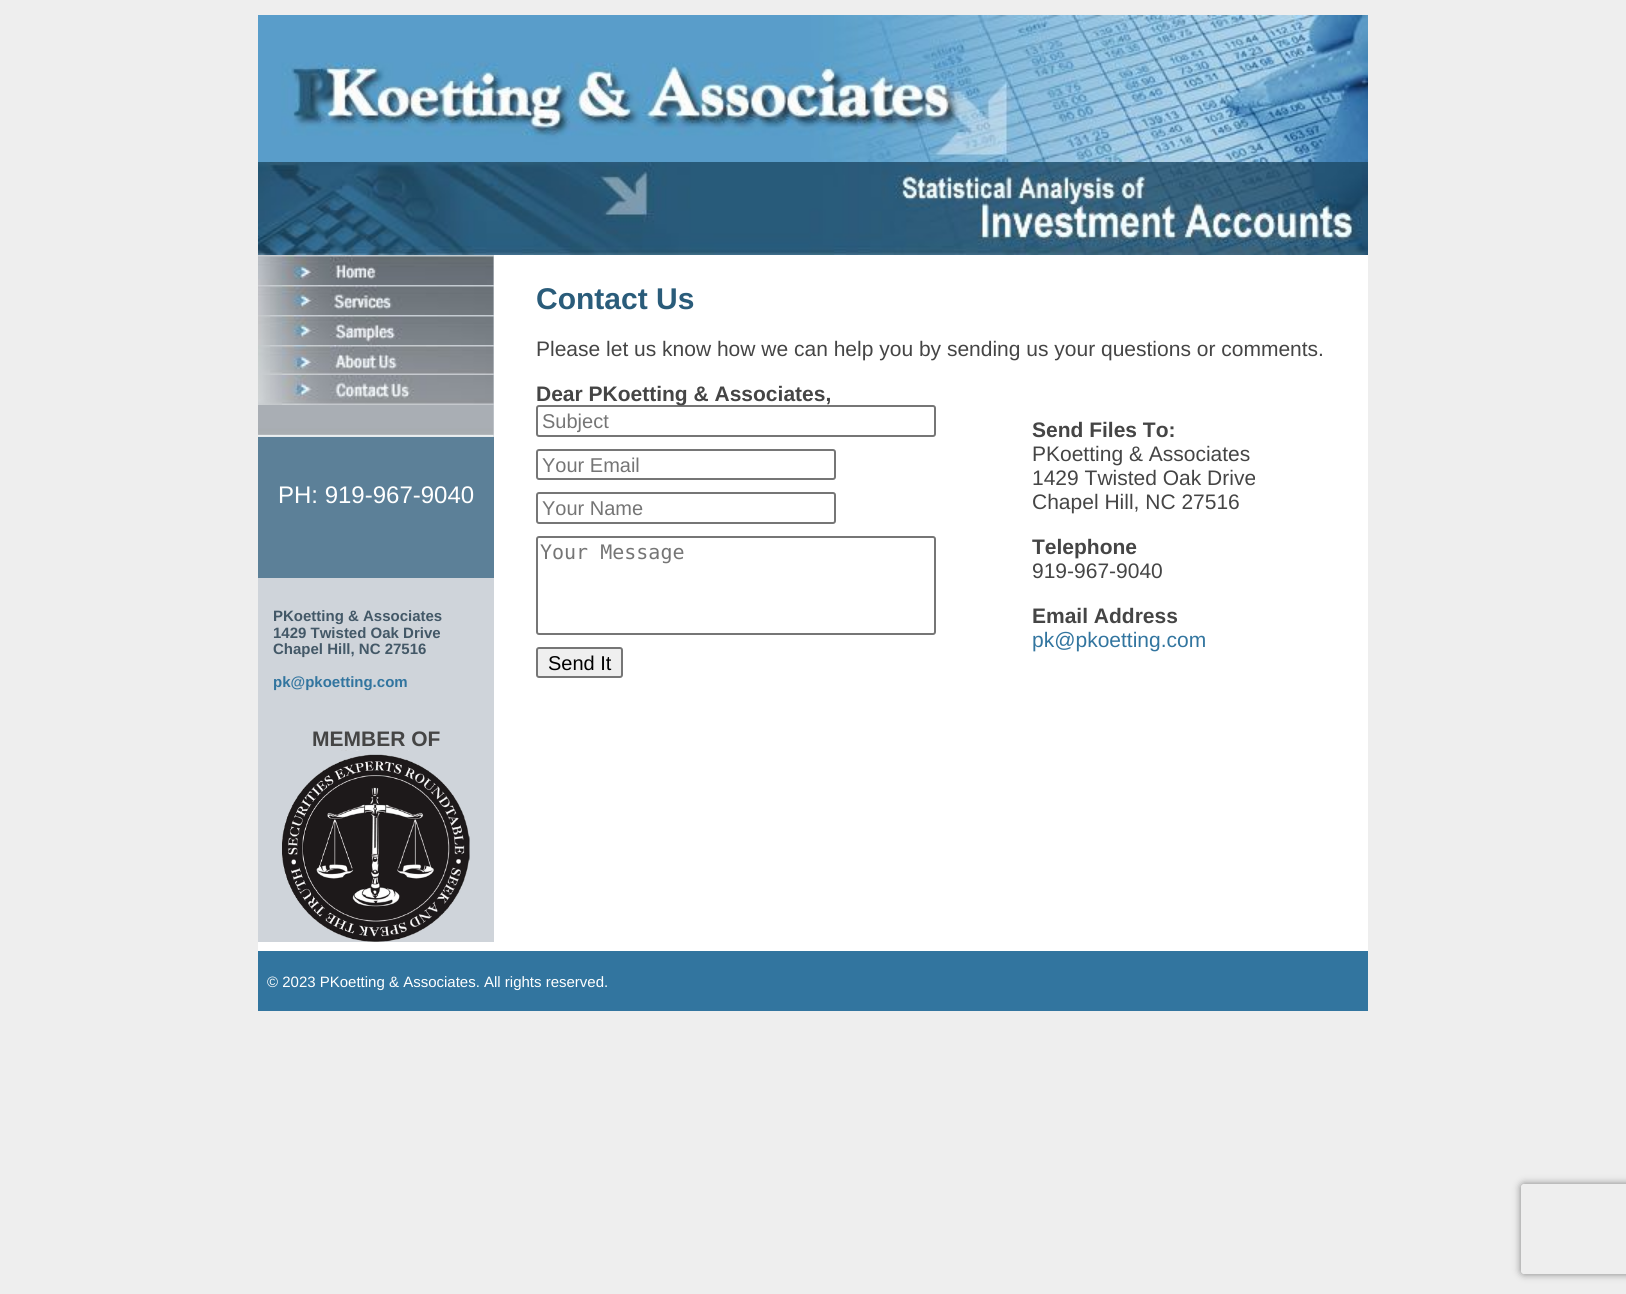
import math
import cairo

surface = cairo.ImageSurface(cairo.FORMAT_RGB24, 1626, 1294)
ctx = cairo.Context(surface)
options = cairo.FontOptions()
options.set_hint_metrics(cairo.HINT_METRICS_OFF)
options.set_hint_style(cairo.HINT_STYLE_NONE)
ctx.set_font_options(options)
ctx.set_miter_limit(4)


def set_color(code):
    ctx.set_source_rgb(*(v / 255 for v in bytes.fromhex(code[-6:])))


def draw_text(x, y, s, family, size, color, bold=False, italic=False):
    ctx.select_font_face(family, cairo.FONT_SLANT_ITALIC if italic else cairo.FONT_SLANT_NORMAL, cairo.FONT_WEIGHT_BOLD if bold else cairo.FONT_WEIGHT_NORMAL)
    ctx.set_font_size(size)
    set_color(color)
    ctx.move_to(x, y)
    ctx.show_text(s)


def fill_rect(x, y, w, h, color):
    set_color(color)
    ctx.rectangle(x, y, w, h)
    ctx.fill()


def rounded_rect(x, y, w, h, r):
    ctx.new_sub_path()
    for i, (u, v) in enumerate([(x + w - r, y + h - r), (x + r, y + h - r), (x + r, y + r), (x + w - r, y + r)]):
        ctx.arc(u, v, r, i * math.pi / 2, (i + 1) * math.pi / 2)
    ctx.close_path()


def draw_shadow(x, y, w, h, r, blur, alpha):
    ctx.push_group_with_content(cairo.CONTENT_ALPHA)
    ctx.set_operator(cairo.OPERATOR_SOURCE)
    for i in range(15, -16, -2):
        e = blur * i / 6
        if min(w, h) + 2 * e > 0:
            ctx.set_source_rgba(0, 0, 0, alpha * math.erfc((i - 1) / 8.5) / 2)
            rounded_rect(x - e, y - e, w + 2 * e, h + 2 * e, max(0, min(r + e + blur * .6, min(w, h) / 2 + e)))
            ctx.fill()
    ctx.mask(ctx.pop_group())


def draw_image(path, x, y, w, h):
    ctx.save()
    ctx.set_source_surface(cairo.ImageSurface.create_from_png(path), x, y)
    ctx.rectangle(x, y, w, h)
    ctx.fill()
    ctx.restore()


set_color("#eeeeee")
ctx.paint()
fill_rect(258, 255, 1110, 696, "#ffffff")
draw_image("assets/img1.png", 258, 15, 1110, 147)
draw_image("assets/img2.png", 258, 162, 1110, 93)
fill_rect(258, 255, 236, 687, "#cfd4da")
draw_image("assets/img3.png", 258, 255, 236, 30)
draw_image("assets/img4.png", 258, 285, 236, 30)
draw_image("assets/img5.png", 258, 315, 236, 30)
draw_image("assets/img6.png", 258, 345, 236, 30)
draw_image("assets/img7.png", 258, 375, 236, 30)
draw_image("assets/img8.png", 258, 405, 236, 32)
fill_rect(258, 437, 236, 141, "#5c8098")
draw_text(278, 503, "PH: 919-967-9040", "Liberation Sans", 24, "#ffffff")
draw_text(273, 621, "PKoetting & Associates", "Liberation Sans", 15, "#435867", bold=True)
draw_text(273, 638, "1429 Twisted Oak Drive", "Liberation Sans", 15, "#435867", bold=True)
draw_text(273, 654, "Chapel Hill, NC 27516", "Liberation Sans", 15, "#435867", bold=True)
draw_text(273, 687, "pk@pkoetting.com", "Liberation Sans", 15, "#32759f", bold=True)
draw_text(312, 746, "MEMBER OF", "Liberation Sans", 21, "#454545", bold=True)
draw_image("assets/img9.png", 282, 750, 188, 192)
draw_text(536, 309, "Contact Us", "Liberation Sans", 30, "#2a5c7a", bold=True)
draw_text(536, 356, "Please let us know how we can help you by sending us your questions or comments.", "Liberation Sans", 21, "#454545")
rounded_rect(537, 406, 398, 30, 2)
set_color("#767676")
ctx.stroke()
draw_text(536, 401, "Dear PKoetting & Associates,", "Liberation Sans", 21, "#454545", bold=True)
draw_text(542, 428, "Subject", "Liberation Sans", 20, "#757575")
rounded_rect(537, 450, 298, 29, 2)
set_color("#767676")
ctx.stroke()
draw_text(542, 472, "Your Email", "Liberation Sans", 20, "#757575")
rounded_rect(537, 493, 298, 30, 2)
set_color("#767676")
ctx.stroke()
draw_text(542, 515, "Your Name", "Liberation Sans", 20, "#757575")
rounded_rect(537, 537, 398, 97, 2)
set_color("#767676")
ctx.stroke()
draw_text(540, 559, "Your Message", "DejaVu Sans Mono", 20, "#757575")
set_color("#efefef")
rounded_rect(537, 648, 85, 29, 2)
ctx.fill_preserve()
set_color("#767676")
ctx.stroke()
draw_text(548, 670, "Send It", "Liberation Sans", 20, "#000000")
ctx.save()
ctx.set_fill_rule(cairo.FILL_RULE_EVEN_ODD)
ctx.new_path()
ctx.move_to(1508, 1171)
ctx.line_to(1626, 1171)
ctx.line_to(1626, 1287)
ctx.line_to(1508, 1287)
ctx.close_path()
ctx.move_to(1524, 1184)
ctx.line_to(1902, 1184)
ctx.curve_to(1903.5, 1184, 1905, 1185.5, 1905, 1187)
ctx.line_to(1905, 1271)
ctx.curve_to(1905, 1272.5, 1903.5, 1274, 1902, 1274)
ctx.line_to(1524, 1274)
ctx.curve_to(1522.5, 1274, 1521, 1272.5, 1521, 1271)
ctx.line_to(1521, 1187)
ctx.curve_to(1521, 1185.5, 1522.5, 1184, 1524, 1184)
ctx.close_path()
ctx.clip()
set_color("#808080")
draw_shadow(1521, 1184, 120, 90, 3, 4, 1)
ctx.restore()
draw_text(1032, 437, "Send Files To:", "Liberation Sans", 21, "#454545", bold=True)
draw_text(1032, 461, "PKoetting & Associates", "Liberation Sans", 21, "#454545")
draw_text(1032, 485, "1429 Twisted Oak Drive", "Liberation Sans", 21, "#454545")
draw_text(1032, 509, "Chapel Hill, NC 27516", "Liberation Sans", 21, "#454545")
draw_text(1032, 554, "Telephone", "Liberation Sans", 21, "#454545", bold=True)
draw_text(1032, 578, "919-967-9040", "Liberation Sans", 21, "#454545")
draw_text(1032, 623, "Email Address", "Liberation Sans", 21, "#454545", bold=True)
draw_text(1032, 647, "pk@pkoetting.com", "Liberation Sans", 21, "#32759f")
fill_rect(258, 951, 1110, 60, "#32759f")
draw_text(267, 987, "© 2023 PKoetting & Associates. All rights reserved.", "Liberation Sans", 15, "#ffffff")
surface.write_to_png("output.png")
